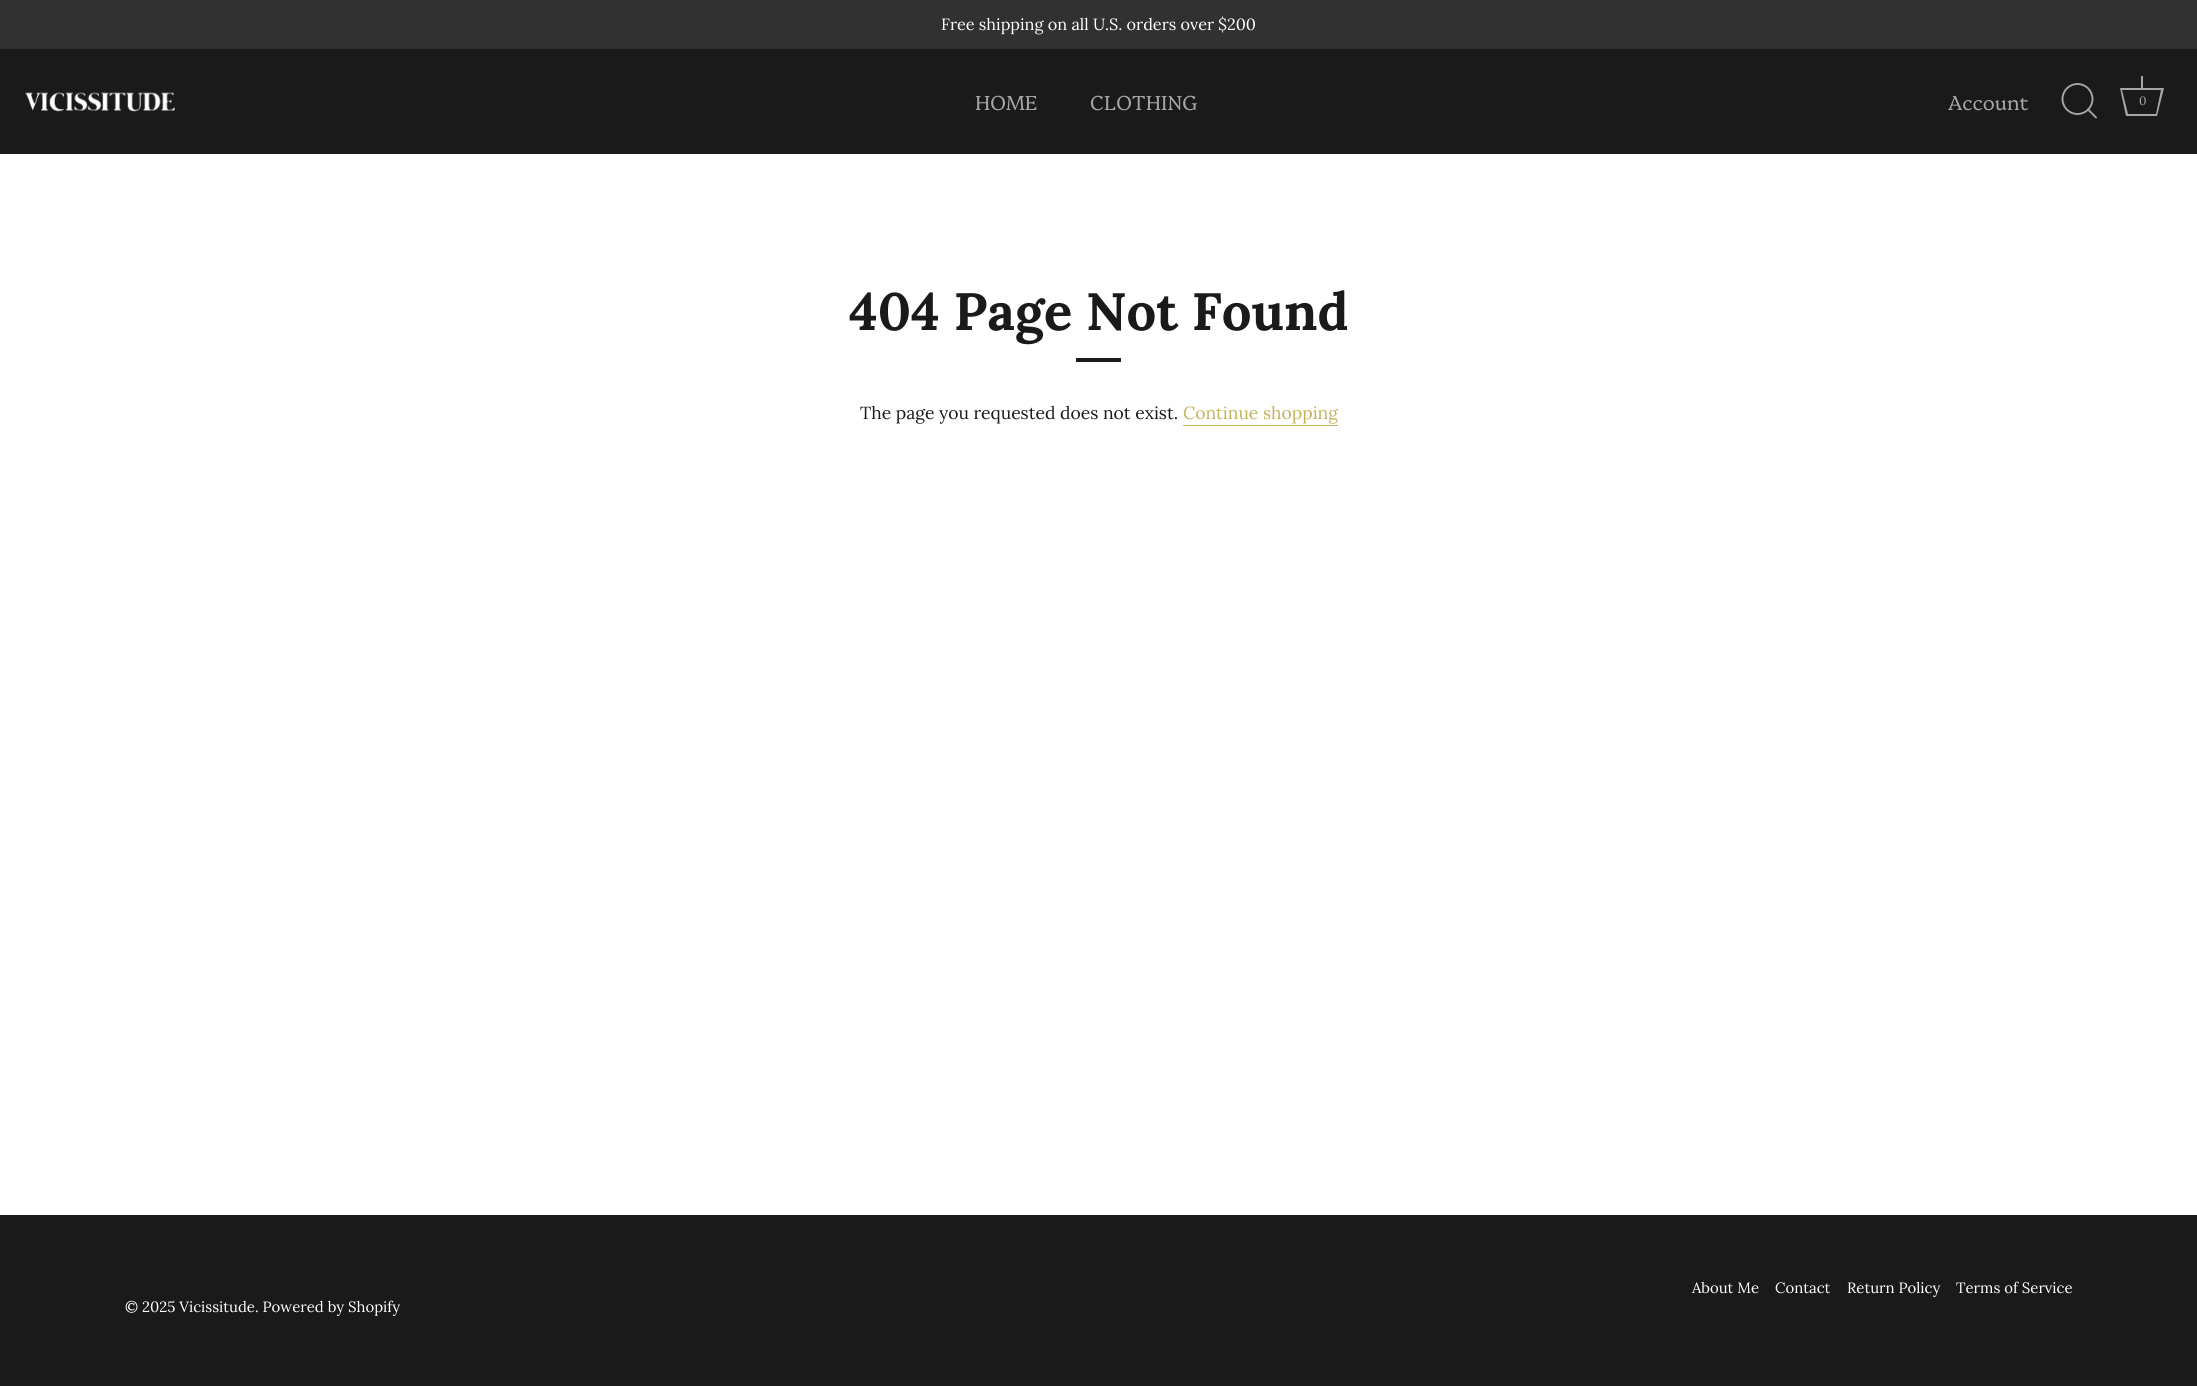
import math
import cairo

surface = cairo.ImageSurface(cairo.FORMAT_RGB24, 2197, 1386)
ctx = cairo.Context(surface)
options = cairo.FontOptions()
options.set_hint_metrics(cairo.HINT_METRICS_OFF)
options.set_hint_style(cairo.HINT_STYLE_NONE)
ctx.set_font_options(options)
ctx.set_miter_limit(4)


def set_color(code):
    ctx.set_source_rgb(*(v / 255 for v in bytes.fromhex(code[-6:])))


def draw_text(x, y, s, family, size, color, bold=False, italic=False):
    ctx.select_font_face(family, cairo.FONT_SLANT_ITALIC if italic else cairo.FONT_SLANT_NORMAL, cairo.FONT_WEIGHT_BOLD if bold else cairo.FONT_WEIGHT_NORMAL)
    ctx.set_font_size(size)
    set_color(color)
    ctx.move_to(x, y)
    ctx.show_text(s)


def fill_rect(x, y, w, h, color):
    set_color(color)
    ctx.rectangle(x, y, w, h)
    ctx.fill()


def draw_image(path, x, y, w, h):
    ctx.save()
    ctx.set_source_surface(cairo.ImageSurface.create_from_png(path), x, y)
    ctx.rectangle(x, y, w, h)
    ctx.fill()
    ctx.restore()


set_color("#ffffff")
ctx.paint()
fill_rect(0, 49, 2197, 105, "#1a1a1a")
fill_rect(0, 0, 2197, 49, "#313131")
draw_text(941, 30, "Free shipping on all U.S. orders over $200", "Lora", 16.25, "#ffffff")
draw_image("assets/img1.png", 25, 92, 150, 20)
draw_text(975, 110, "HOME", "Platypi Light", 20.25, "#a6a6a6")
draw_text(1090, 110, "CLOTHING", "Platypi Light", 20.25, "#a6a6a6")
draw_text(1948, 110, "Account", "Platypi Light", 20.25, "#a6a6a6")
ctx.new_path()
ctx.arc(2077.5, 99, 15, 0, 2 * math.pi)
ctx.set_line_width(1.9)
ctx.stroke()
ctx.new_path()
ctx.move_to(2096, 117.5)
ctx.line_to(2088, 109.5)
ctx.set_line_cap(cairo.LINE_CAP_ROUND)
ctx.set_line_join(cairo.LINE_JOIN_ROUND)
ctx.stroke()
fill_rect(2141, 76, 2, 12, "#a6a6a6")
ctx.new_path()
ctx.move_to(2161, 90)
ctx.line_to(2156, 114)
ctx.line_to(2128, 114)
ctx.line_to(2122, 90)
ctx.line_to(2161, 90)
ctx.move_to(2164, 88)
ctx.line_to(2120, 88)
ctx.line_to(2126, 116)
ctx.line_to(2157, 116)
ctx.close_path()
ctx.fill()
draw_text(2139, 105, "0", "Lora", 12, "#a6a6a6")
draw_text(849, 330, "404 Page Not Found", "Lora", 52.5, "#1a1a1a", bold=True)
fill_rect(1076, 358, 45, 4, "#1a1a1a")
draw_text(860, 419, "The page you requested does not exist.", "Lora", 17.5, "#1a1a1a")
draw_text(1183, 419, "Continue shopping", "Lora", 17.5, "#c5b358")
fill_rect(1183, 425, 155, 1, "#c5b358")
fill_rect(0, 1215, 2197, 171, "#1a1a1a")
draw_text(1692, 1293, "About Me", "Lora", 14.9, "#ffffff")
draw_text(1775, 1293, "Contact", "Lora", 14.9, "#ffffff")
draw_text(1847, 1293, "Return Policy", "Lora", 14.9, "#ffffff")
draw_text(1956, 1293, "Terms of Service", "Lora", 14.9, "#ffffff")
draw_text(125, 1312, "© 2025 Vicissitude. Powered by Shopify", "Lora", 14.9, "#ffffff")
surface.write_to_png("output.png")
